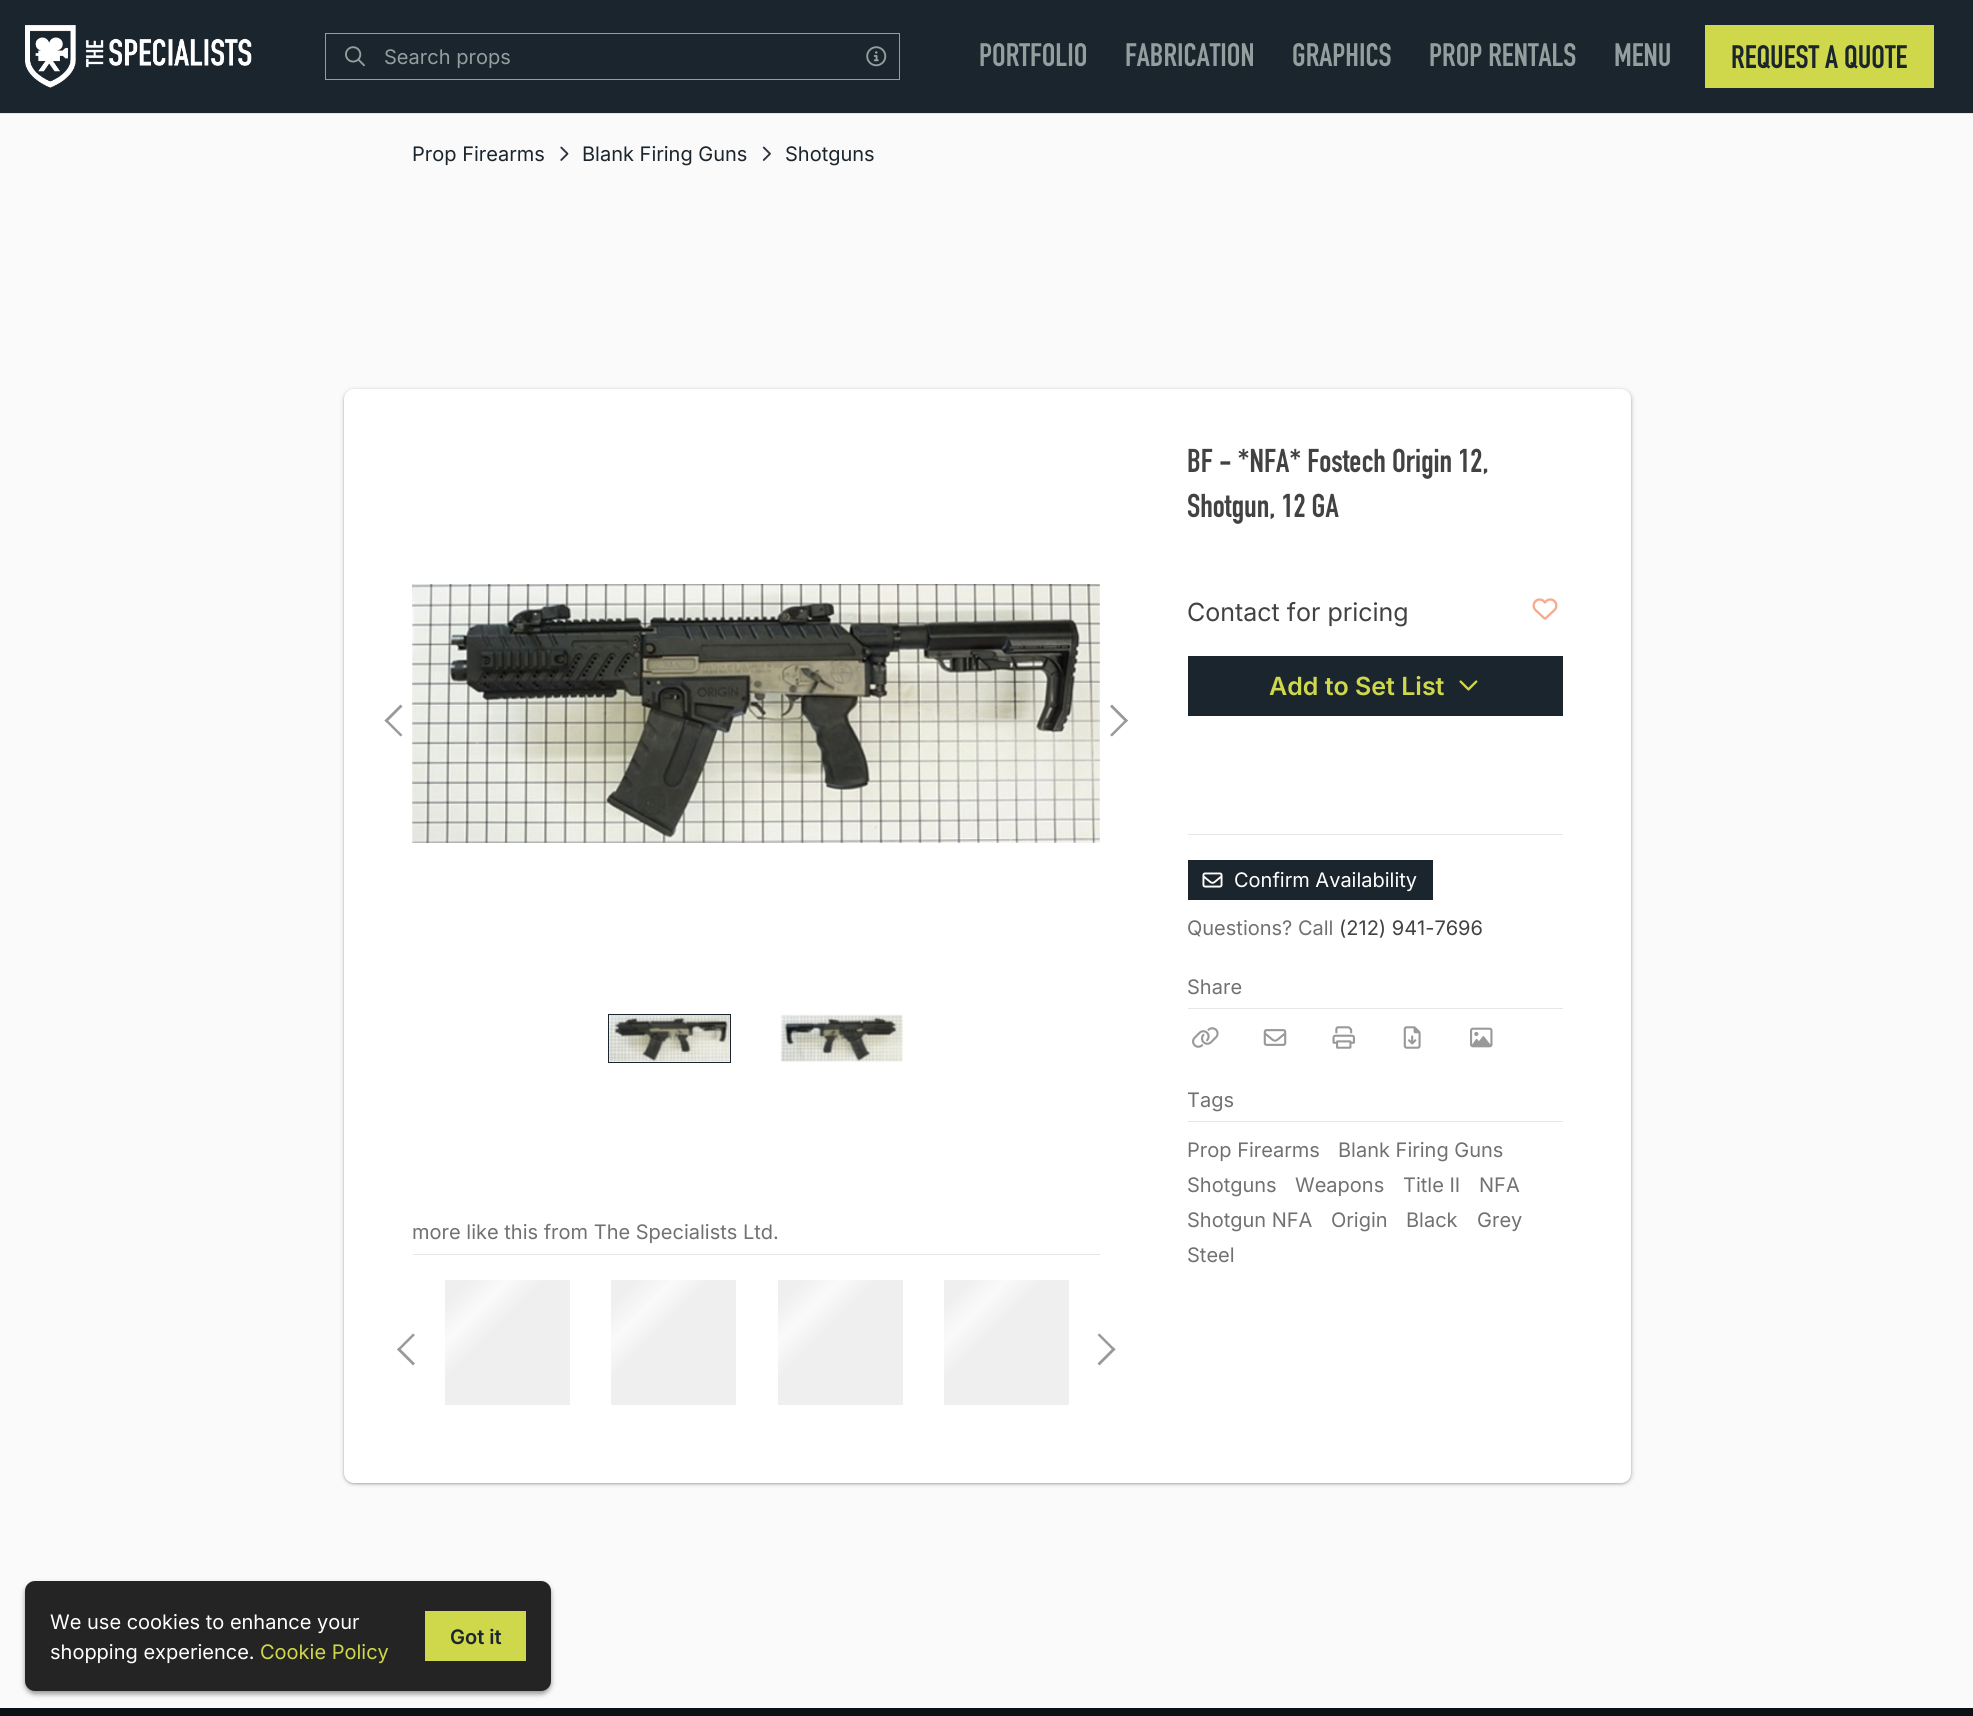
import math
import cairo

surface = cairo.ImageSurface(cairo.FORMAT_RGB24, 1973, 1716)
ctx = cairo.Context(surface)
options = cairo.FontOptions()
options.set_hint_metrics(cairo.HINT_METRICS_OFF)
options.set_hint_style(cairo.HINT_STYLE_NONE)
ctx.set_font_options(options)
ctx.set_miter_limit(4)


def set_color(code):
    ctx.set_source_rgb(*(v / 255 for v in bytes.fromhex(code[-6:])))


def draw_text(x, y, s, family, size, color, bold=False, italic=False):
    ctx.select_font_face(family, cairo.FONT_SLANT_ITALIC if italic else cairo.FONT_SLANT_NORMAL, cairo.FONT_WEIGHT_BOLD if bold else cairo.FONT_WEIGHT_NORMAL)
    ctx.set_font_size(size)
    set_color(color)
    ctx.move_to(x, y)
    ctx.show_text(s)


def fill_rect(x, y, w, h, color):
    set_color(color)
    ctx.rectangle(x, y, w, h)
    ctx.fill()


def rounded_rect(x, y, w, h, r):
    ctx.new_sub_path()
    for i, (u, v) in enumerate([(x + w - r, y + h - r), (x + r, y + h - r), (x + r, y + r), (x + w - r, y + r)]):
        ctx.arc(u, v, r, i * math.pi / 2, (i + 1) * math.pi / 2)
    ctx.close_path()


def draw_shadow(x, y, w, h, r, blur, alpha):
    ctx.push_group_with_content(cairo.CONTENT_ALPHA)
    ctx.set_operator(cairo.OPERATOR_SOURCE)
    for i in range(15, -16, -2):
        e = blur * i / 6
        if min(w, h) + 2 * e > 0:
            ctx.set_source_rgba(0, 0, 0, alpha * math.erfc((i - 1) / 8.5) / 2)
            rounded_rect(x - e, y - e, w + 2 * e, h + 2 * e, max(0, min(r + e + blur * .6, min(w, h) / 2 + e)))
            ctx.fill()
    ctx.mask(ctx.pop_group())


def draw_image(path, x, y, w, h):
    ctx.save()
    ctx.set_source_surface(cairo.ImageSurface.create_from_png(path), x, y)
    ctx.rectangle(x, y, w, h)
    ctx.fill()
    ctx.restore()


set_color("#fafafa")
ctx.paint()
fill_rect(0, 0, 1973, 113, "#1b252d")
draw_image("assets/img1.png", 25, 25, 227, 63)
ctx.rectangle(325.5, 33.5, 574, 46)
set_color("#929f9f")
ctx.set_line_width(1)
ctx.stroke()
draw_image("assets/img2.png", 345, 46, 20, 21)
draw_text(384, 64, "Search props", "Inter", 20, "#929f9f")
draw_image("assets/img3.png", 866, 46, 21, 21)
draw_text(979, 66, "PORTFOLIO", "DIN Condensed", 32, "#929f9f", bold=True)
draw_text(1125, 66, "FABRICATION", "DIN Condensed", 32, "#929f9f", bold=True)
draw_text(1292, 66, "GRAPHICS", "DIN Condensed", 32, "#929f9f", bold=True)
draw_text(1429, 66, "PROP RENTALS", "DIN Condensed", 32, "#929f9f", bold=True)
draw_text(1614, 66, "MENU", "DIN Condensed", 32, "#929f9f", bold=True)
fill_rect(1705, 25, 229, 63, "#cfd74b")
draw_text(1731, 68, "REQUEST A QUOTE", "DIN Condensed", 32, "#1b252d", bold=True)
fill_rect(0, 113, 1973, 1, "#e6e6e6")
draw_text(412, 161, "Prop Firearms", "Inter", 20, "#1b252d")
draw_image("assets/img4.png", 560, 146, 9, 15)
draw_text(582, 161, "Blank Firing Guns", "Inter", 20, "#1b252d")
draw_image("assets/img5.png", 762, 146, 9, 15)
draw_text(785, 161, "Shotguns", "Inter", 20, "#1b252d")
set_color("#3c4043")
draw_shadow(343, 389, 1290, 1096, 11, 2, 0.15)
draw_shadow(344, 390, 1287, 1094, 10, 1, 0.3)
set_color("#ffffff")
rounded_rect(344, 389, 1287, 1094, 10)
ctx.fill()
draw_text(1187, 472, "BF - *NFA* Fostech Origin 12,", "DIN Condensed", 32.5, "#424242", bold=True)
draw_text(1187, 517, "Shotgun, 12 GA", "DIN Condensed", 32.5, "#424242", bold=True)
set_color("#999999")
ctx.new_path()
ctx.move_to(400.5, 736.5)
ctx.line_to(384.5, 720.5)
ctx.line_to(386.5, 719)
ctx.line_to(402.5, 735)
ctx.close_path()
ctx.fill()
ctx.new_path()
ctx.move_to(386.5, 722.5)
ctx.line_to(384.5, 720.5)
ctx.line_to(400.5, 704.5)
ctx.line_to(402.5, 706.5)
ctx.close_path()
ctx.fill()
draw_image("assets/img6.png", 412, 584, 688, 259)
ctx.new_path()
ctx.move_to(1112, 704.5)
ctx.line_to(1128, 720.5)
ctx.line_to(1126, 722.5)
ctx.line_to(1110, 706.5)
ctx.close_path()
ctx.fill()
ctx.new_path()
ctx.move_to(1126, 719)
ctx.line_to(1128, 720.5)
ctx.line_to(1112, 736.5)
ctx.line_to(1110, 735)
ctx.close_path()
ctx.fill()
draw_image("assets/img7.png", 609, 1015, 121, 47)
ctx.rectangle(608.5, 1014.5, 122, 48)
set_color("#1b252d")
ctx.stroke()
draw_image("assets/img8.png", 780, 1014, 123, 48)
draw_text(1187, 621, "Contact for pricing", "Inter", 25, "#424242")
draw_image("assets/img9.png", 1532, 598, 26, 22)
fill_rect(1188, 656, 375, 60, "#1b252d")
draw_text(1269, 695, "Add to Set List", "Inter SemiBold", 25, "#cfd74b")
draw_image("assets/img10.png", 1459, 680, 19, 11)
fill_rect(1188, 834, 375, 1, "#e6e6e6")
fill_rect(413, 1254, 687, 1, "#e6e6e6")
draw_text(412, 1239, "more like this from The Specialists Ltd.", "Inter", 20, "#717171")
set_color("#999999")
ctx.new_path()
ctx.move_to(413, 1365.5)
ctx.line_to(397, 1349.5)
ctx.line_to(399, 1347.5)
ctx.line_to(415, 1363.5)
ctx.close_path()
ctx.fill()
ctx.new_path()
ctx.move_to(399, 1351)
ctx.line_to(397, 1349.5)
ctx.line_to(413, 1333.5)
ctx.line_to(415, 1335)
ctx.close_path()
ctx.fill()
gradient = cairo.LinearGradient(539, 1436, 351, 1249)
gradient.add_color_stop_rgba(0.4, 0.937, 0.937, 0.937, 1)
gradient.add_color_stop_rgba(0.5, 0.98, 0.98, 0.98, 1)
gradient.add_color_stop_rgba(0.6, 0.937, 0.937, 0.937, 1)
ctx.set_source(gradient)
ctx.rectangle(445, 1280, 125, 125)
ctx.fill()
gradient = cairo.LinearGradient(705, 1436, 518, 1249)
gradient.add_color_stop_rgba(0.4, 0.937, 0.937, 0.937, 1)
gradient.add_color_stop_rgba(0.5, 0.98, 0.98, 0.98, 1)
gradient.add_color_stop_rgba(0.6, 0.937, 0.937, 0.937, 1)
ctx.set_source(gradient)
ctx.rectangle(611, 1280, 125, 125)
ctx.fill()
gradient = cairo.LinearGradient(871, 1436, 684, 1249)
gradient.add_color_stop_rgba(0.4, 0.937, 0.937, 0.937, 1)
gradient.add_color_stop_rgba(0.5, 0.98, 0.98, 0.98, 1)
gradient.add_color_stop_rgba(0.6, 0.937, 0.937, 0.937, 1)
ctx.set_source(gradient)
ctx.rectangle(778, 1280, 125, 125)
ctx.fill()
gradient = cairo.LinearGradient(1038, 1436, 850, 1249)
gradient.add_color_stop_rgba(0.4, 0.937, 0.937, 0.937, 1)
gradient.add_color_stop_rgba(0.5, 0.98, 0.98, 0.98, 1)
gradient.add_color_stop_rgba(0.6, 0.937, 0.937, 0.937, 1)
ctx.set_source(gradient)
ctx.rectangle(944, 1280, 125, 125)
ctx.fill()
set_color("#999999")
ctx.new_path()
ctx.move_to(1099.5, 1333.5)
ctx.line_to(1115.5, 1349.5)
ctx.line_to(1113.5, 1351)
ctx.line_to(1097.5, 1335)
ctx.close_path()
ctx.fill()
ctx.new_path()
ctx.move_to(1113.5, 1347.5)
ctx.line_to(1115.5, 1349.5)
ctx.line_to(1099.5, 1365.5)
ctx.line_to(1097.5, 1363.5)
ctx.close_path()
ctx.fill()
fill_rect(1188, 860, 245, 40, "#1b252d")
draw_image("assets/img11.png", 1202, 872, 21, 16)
draw_text(1234, 887, "Confirm Availability", "Inter", 20, "#ffffff")
draw_text(1187, 935, "Questions? Call", "Inter", 20, "#717171")
draw_text(1339, 935, "(212) 941-7696", "Inter", 20, "#424242")
fill_rect(1188, 1008, 375, 1, "#e6e6e6")
draw_text(1187, 994, "Share", "Inter", 20, "#717171")
draw_image("assets/img12.png", 1192, 1027, 27, 21)
draw_image("assets/img13.png", 1263, 1029, 24, 17)
draw_image("assets/img14.png", 1332, 1026, 23, 23)
draw_image("assets/img15.png", 1403, 1026, 18, 23)
draw_image("assets/img16.png", 1470, 1027, 23, 21)
fill_rect(1188, 1121, 375, 1, "#e6e6e6")
draw_text(1187, 1107, "Tags", "Inter", 20, "#717171")
draw_text(1187, 1157, "Prop Firearms", "Inter", 20, "#717171")
draw_text(1338, 1157, "Blank Firing Guns", "Inter", 20, "#717171")
draw_text(1187, 1192, "Shotguns", "Inter", 20, "#717171")
draw_text(1295, 1192, "Weapons", "Inter", 20, "#717171")
draw_text(1403, 1192, "Title II", "Inter", 20, "#717171")
draw_text(1479, 1192, "NFA", "Inter", 20, "#717171")
draw_text(1187, 1227, "Shotgun NFA", "Inter", 20, "#717171")
draw_text(1331, 1227, "Origin", "Inter", 20, "#717171")
draw_text(1406, 1227, "Black", "Inter", 20, "#717171")
draw_text(1477, 1227, "Grey", "Inter", 20, "#717171")
draw_text(1187, 1262, "Steel", "Inter", 20, "#717171")
set_color("#323232")
draw_shadow(25, 1584, 526, 110, 10, 2.5, 0.5)
set_color("#242424")
rounded_rect(25, 1581, 526, 110, 10)
ctx.fill()
draw_text(50, 1629, "We use cookies to enhance your", "Inter", 20, "#ffffff")
draw_text(50, 1659, "shopping experience.", "Inter", 20, "#ffffff")
draw_text(260, 1659, "Cookie Policy", "Inter", 20, "#cfd74b")
fill_rect(425, 1611, 101, 50, "#cfd74b")
draw_text(450, 1644, "Got it", "Inter SemiBold", 20, "#1b252d")
fill_rect(0, 1708, 1973, 8, "#0c1115")
surface.write_to_png("output.png")
